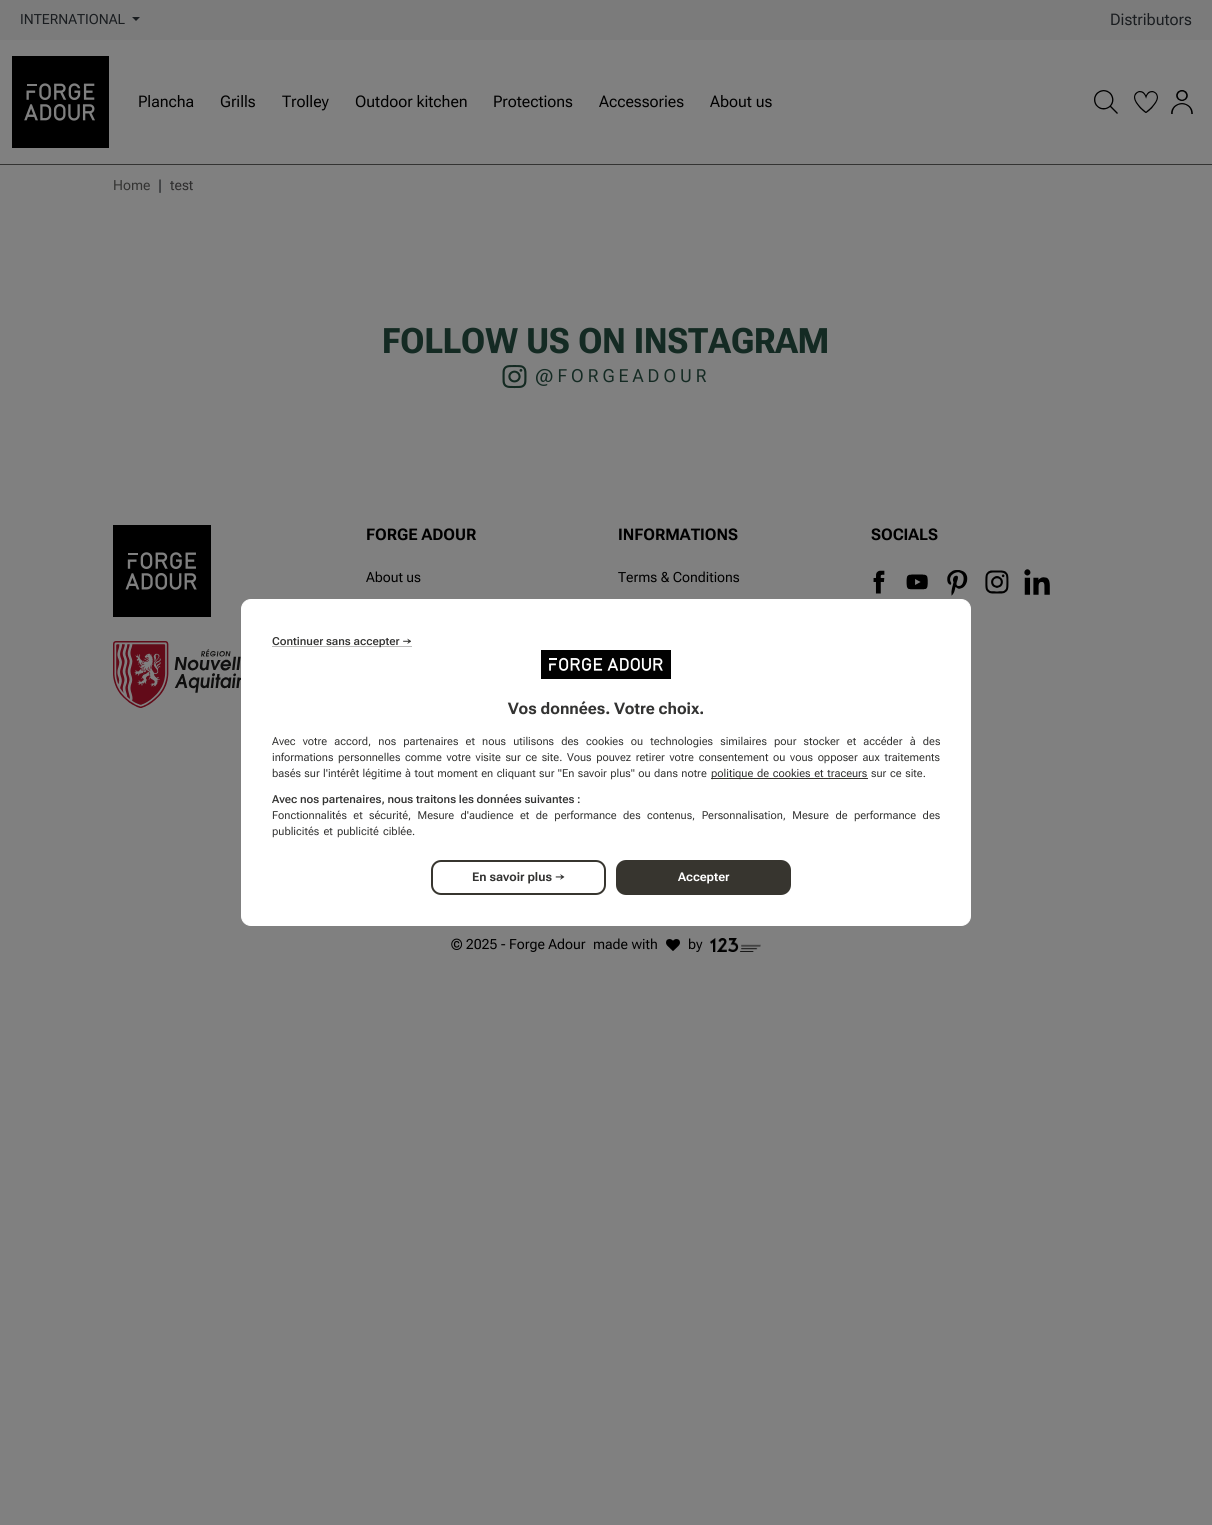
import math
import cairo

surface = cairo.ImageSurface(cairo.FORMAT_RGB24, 1212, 1525)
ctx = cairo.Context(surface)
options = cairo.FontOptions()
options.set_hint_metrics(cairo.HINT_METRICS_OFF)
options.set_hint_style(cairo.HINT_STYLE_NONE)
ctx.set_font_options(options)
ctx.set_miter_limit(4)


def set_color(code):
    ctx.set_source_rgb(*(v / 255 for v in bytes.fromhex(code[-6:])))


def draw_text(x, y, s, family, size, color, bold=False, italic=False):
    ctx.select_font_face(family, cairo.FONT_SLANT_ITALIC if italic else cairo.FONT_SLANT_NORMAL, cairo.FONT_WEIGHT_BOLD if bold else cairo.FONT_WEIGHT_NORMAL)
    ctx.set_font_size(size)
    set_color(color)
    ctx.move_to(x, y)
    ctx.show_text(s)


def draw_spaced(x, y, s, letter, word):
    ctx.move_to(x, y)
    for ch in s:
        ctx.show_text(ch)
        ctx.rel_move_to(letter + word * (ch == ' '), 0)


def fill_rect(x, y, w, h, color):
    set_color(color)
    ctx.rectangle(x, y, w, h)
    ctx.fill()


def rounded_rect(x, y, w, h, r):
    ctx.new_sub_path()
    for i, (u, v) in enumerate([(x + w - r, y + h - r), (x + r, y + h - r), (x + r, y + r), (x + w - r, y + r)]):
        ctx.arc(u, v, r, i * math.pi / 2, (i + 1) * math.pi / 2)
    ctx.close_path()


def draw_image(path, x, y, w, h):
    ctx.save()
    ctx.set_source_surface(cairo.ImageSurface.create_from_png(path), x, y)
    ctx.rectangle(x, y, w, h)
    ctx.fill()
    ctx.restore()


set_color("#808080")
ctx.paint()
fill_rect(0, 164, 1212, 1, "#333332")
fill_rect(0, 0, 1212, 40, "#7b7b7b")
draw_text(20, 24, "INTERNATIONAL", "Roboto Flex", 14, "#1a1d20")
ctx.new_path()
ctx.move_to(132, 17)
ctx.line_to(140, 17)
ctx.line_to(136, 21)
ctx.close_path()
ctx.fill()
draw_text(1110, 25, "Distributors", "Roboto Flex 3", 16, "#1a1d20")
draw_image("assets/img1.png", 12, 56, 97, 92)
draw_text(138, 107, "Plancha", "Roboto Flex 3", 16, "#000000")
draw_text(220, 107, "Grills", "Roboto Flex 3", 16, "#000000")
draw_text(282, 107, "Trolley", "Roboto Flex 3", 16, "#000000")
draw_text(355, 107, "Outdoor kitchen", "Roboto Flex 3", 16, "#000000")
draw_text(493, 107, "Protections", "Roboto Flex 3", 16, "#000000")
draw_text(599, 107, "Accessories", "Roboto Flex 3", 16, "#000000")
draw_text(710, 107, "About us", "Roboto Flex 3", 16, "#000000")
draw_image("assets/img2.png", 1094, 90, 24, 24)
draw_image("assets/img3.png", 1134, 91, 24, 22)
draw_image("assets/img4.png", 1171, 90, 22, 24)
draw_text(113, 190, "Home", "Roboto Flex", 14, "#333332")
draw_text(158, 190, "|", "Roboto Flex", 14, "#1a1d20")
draw_text(170, 190, "test", "Roboto Flex", 14, "#2d2c2d")
draw_text(382, 353, "FOLLOW US ON INSTAGRAM", "Roboto Flex", 35, "#142a23", bold=True)
draw_image("assets/img5.png", 502, 365, 25, 24)
ctx.select_font_face("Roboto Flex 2")
ctx.set_font_size(18)
draw_spaced(535, 382, "@FORGEADOUR", 4, 0)
draw_image("assets/img6.png", 113, 525, 98, 92)
draw_image("assets/img7.png", 113, 641, 128, 67)
draw_text(366, 540, "FORGE ADOUR", "Roboto Flex 2", 16, "#000000", bold=True)
draw_text(366, 582, "About us", "Roboto Flex", 14, "#000000")
draw_text(618, 540, "INFORMATIONS", "Roboto Flex 2", 16, "#000000", bold=True)
draw_text(618, 582, "Terms & Conditions", "Roboto Flex", 14, "#000000")
draw_text(871, 540, "SOCIALS", "Roboto Flex 2", 16, "#000000", bold=True)
draw_image("assets/img8.png", 873, 570, 12, 24)
draw_image("assets/img9.png", 906, 574, 22, 16)
draw_image("assets/img10.png", 947, 570, 21, 26)
draw_image("assets/img11.png", 985, 570, 24, 24)
draw_image("assets/img12.png", 1024, 569, 26, 26)
draw_text(451, 949, "© 2025 - Forge Adour", "Roboto Flex", 14, "#000000")
draw_text(593, 949, "made with", "Roboto Flex", 14, "#000000")
draw_image("assets/img13.png", 666, 939, 14, 12)
draw_text(688, 949, "by", "Roboto Flex", 14, "#000000")
draw_image("assets/img14.png", 710, 938, 51, 14)
set_color("#ffffff")
rounded_rect(241.5, 599.5, 729, 326, 9.5)
ctx.fill_preserve()
ctx.set_line_width(1)
ctx.stroke()
fill_rect(272, 646, 140, 1, "#bbbbbb")
draw_text(272, 645, "Continuer sans accepter →", "Roboto Flex SemiBold", 11, "#333332")
draw_image("assets/img15.png", 541, 650, 130, 29)
draw_text(508, 714, "Vos données. Votre choix.", "Roboto Flex 3", 16, "#333332", bold=True)
ctx.select_font_face("Roboto Flex")
ctx.set_font_size(11)
draw_spaced(272, 745, "Avec votre accord, nos partenaires et nous utilisons des cookies ou technologies similaires pour stocker et accéder à des", 0, 4.5)
draw_spaced(272, 761, "informations personnelles comme votre visite sur ce site. Vous pouvez retirer votre consentement ou vous opposer aux traitements", 0, 2)
draw_spaced(272, 777, "basés sur l'intérêt légitime à tout moment en cliquant sur \"En savoir plus\" ou dans notre", 0, 0.75)
fill_rect(711, 778, 157, 1, "#37352f")
set_color("#333332")
draw_spaced(711, 777, "politique de cookies et traceurs", 0, 1)
draw_spaced(871, 777, "sur ce site.", 0, 1)
draw_text(272, 803, "Avec nos partenaires, nous traitons les données suivantes :", "Roboto Flex SemiBold", 11, "#333332")
ctx.select_font_face("Roboto Flex")
draw_spaced(272, 819, "Fonctionnalités et sécurité, Mesure d'audience et de performance des contenus, Personnalisation, Mesure de performance des", 0, 3.75)
draw_spaced(272, 835, "publicités et publicité ciblée.", 0, 1.5)
rounded_rect(432, 861, 173, 33, 9)
set_color("#37352f")
ctx.set_line_width(2)
ctx.stroke()
draw_text(472, 881, "En savoir plus →", "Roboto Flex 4", 12, "#333332", bold=True)
set_color("#37352f")
rounded_rect(617, 861, 173, 33, 9)
ctx.fill_preserve()
ctx.stroke()
draw_text(678, 881, "Accepter", "Roboto Flex 4", 12, "#ffffff", bold=True)
surface.write_to_png("output.png")
